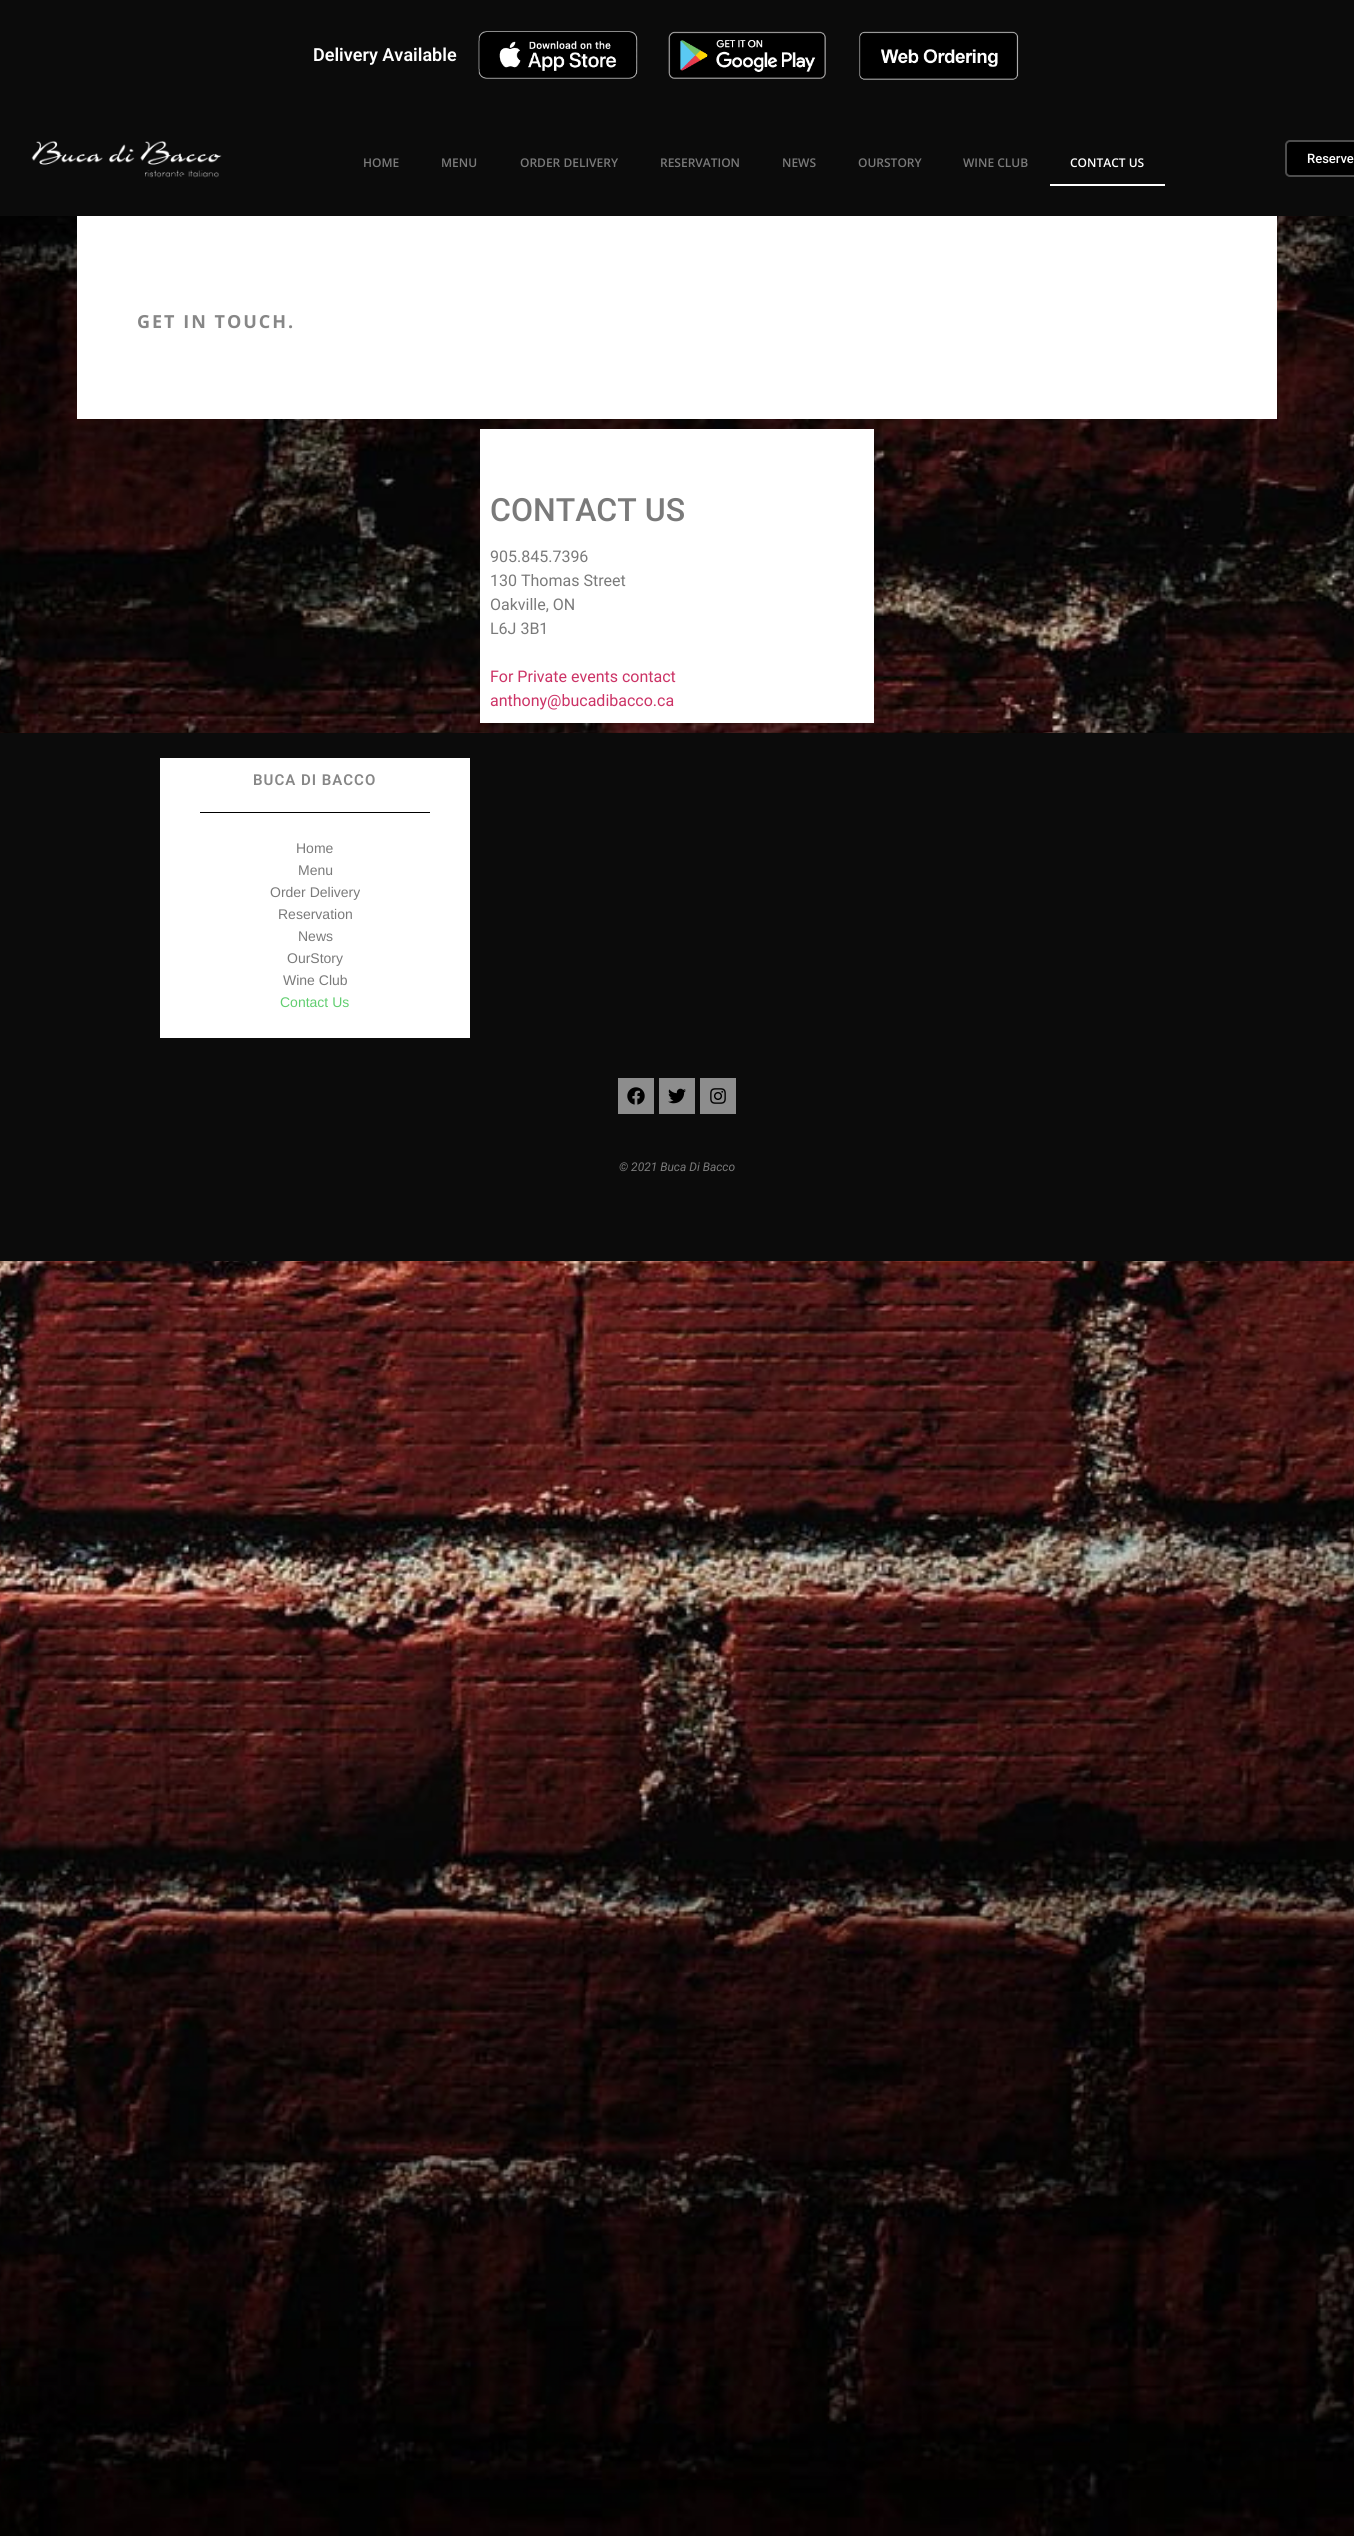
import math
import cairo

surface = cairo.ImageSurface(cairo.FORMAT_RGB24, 1354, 2536)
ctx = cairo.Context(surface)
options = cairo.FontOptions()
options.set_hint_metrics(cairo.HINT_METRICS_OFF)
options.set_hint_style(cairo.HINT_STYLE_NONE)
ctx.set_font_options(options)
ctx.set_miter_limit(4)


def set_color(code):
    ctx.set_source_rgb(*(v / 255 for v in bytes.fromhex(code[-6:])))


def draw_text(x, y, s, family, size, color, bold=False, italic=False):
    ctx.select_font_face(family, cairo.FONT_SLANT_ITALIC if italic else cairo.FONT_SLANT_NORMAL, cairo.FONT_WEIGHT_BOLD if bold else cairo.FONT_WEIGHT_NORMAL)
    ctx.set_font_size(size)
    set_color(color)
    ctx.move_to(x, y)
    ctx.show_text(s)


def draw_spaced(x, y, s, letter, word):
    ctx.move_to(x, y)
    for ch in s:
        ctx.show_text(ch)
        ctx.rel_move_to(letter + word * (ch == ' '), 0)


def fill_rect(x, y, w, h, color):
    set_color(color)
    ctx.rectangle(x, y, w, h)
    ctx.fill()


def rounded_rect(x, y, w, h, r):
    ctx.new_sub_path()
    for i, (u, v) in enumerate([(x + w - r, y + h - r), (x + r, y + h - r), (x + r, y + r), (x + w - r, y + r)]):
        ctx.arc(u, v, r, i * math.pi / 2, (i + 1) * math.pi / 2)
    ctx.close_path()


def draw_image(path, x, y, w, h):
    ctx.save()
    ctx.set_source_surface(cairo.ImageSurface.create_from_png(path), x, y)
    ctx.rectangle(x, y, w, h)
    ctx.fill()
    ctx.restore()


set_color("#ffffff")
ctx.paint()
draw_image("assets/img1.png", 0, 216, 1354, 2320)
fill_rect(0, 0, 1354, 216, "#0b0b0b")
draw_text(313, 61, "Delivery Available", "Roboto SemiBold", 18, "#ffffff")
draw_image("assets/img2.png", 478, 31, 160, 48)
draw_image("assets/img3.png", 668, 31, 158, 48)
draw_image("assets/img4.png", 859, 31, 160, 49)
draw_image("assets/img5.png", 31, 141, 191, 37)
draw_text(363, 167, "HOME", "Open Sans SemiBold", 12, "#7a7a7a")
draw_text(441, 167, "MENU", "Open Sans SemiBold", 12, "#7a7a7a")
draw_text(520, 167, "ORDER DELIVERY", "Open Sans SemiBold", 12, "#7a7a7a")
draw_text(660, 167, "RESERVATION", "Open Sans SemiBold", 12, "#7a7a7a")
draw_text(782, 167, "NEWS", "Open Sans SemiBold", 12, "#7a7a7a")
draw_text(858, 167, "OURSTORY", "Open Sans SemiBold", 12, "#7a7a7a")
draw_text(963, 167, "WINE CLUB", "Open Sans SemiBold", 12, "#7a7a7a")
draw_text(1070, 167, "CONTACT US", "Open Sans SemiBold", 12, "#ffffff")
fill_rect(1050, 184, 115, 2, "#ffffff")
set_color("#000000")
rounded_rect(1286, 141, 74, 35, 4)
ctx.fill_preserve()
set_color("#4d4d4d")
ctx.stroke()
draw_text(1307, 163, "Reserve", "Roboto Medium", 13, "#ffffff")
fill_rect(77, 216, 1200, 203, "#ffffff")
ctx.select_font_face("Open Sans", cairo.FONT_SLANT_NORMAL, cairo.FONT_WEIGHT_BOLD)
ctx.set_font_size(18)
set_color("#878787")
draw_spaced(137, 328, "GET IN TOUCH.", 2, 0)
fill_rect(480, 429, 394, 294, "#ffffff")
draw_text(490, 521, "CONTACT US", "Roboto Medium", 32, "#7a7a7a")
draw_text(490, 562, "905.845.7396", "Roboto", 16, "#7a7a7a")
draw_text(490, 586, "130 Thomas Street", "Roboto", 16, "#7a7a7a")
draw_text(490, 610, "Oakville, ON", "Roboto", 16, "#7a7a7a")
draw_text(490, 634, "L6J 3B1", "Roboto", 16, "#7a7a7a")
draw_text(490, 682, "For Private events contact", "Roboto", 16, "#cc3366")
draw_text(490, 706, "anthony@bucadibacco.ca", "Roboto", 16, "#cc3366")
fill_rect(0, 733, 1354, 528, "#0b0b0b")
fill_rect(160, 758, 310, 280, "#ffffff")
ctx.select_font_face("Roboto SemiBold")
ctx.set_font_size(15)
set_color("#878787")
draw_spaced(253, 785, "BUCA DI BACCO", 1, 0)
fill_rect(200, 812, 230, 1, "#000000")
draw_text(296, 853, "Home", "Liberation Sans", 14, "#7a7a7a")
draw_text(298, 875, "Menu", "Liberation Sans", 14, "#7a7a7a")
draw_text(270, 897, "Order Delivery", "Liberation Sans", 14, "#7a7a7a")
draw_text(278, 919, "Reservation", "Liberation Sans", 14, "#7a7a7a")
draw_text(298, 941, "News", "Liberation Sans", 14, "#7a7a7a")
draw_text(287, 963, "OurStory", "Liberation Sans", 14, "#7a7a7a")
draw_text(283, 985, "Wine Club", "Liberation Sans", 14, "#7a7a7a")
draw_text(280, 1007, "Contact Us", "Liberation Sans", 14, "#61ce70")
fill_rect(618, 1078, 36, 36, "#8d8d8d")
draw_image("assets/img6.png", 627, 1087, 18, 18)
fill_rect(659, 1078, 36, 36, "#8d8d8d")
draw_image("assets/img7.png", 668, 1088, 18, 16)
fill_rect(700, 1078, 36, 36, "#8d8d8d")
draw_image("assets/img8.png", 710, 1088, 16, 16)
draw_text(619, 1171, "© 2021 Buca Di Bacco", "Roboto", 12, "#7a7a7a", italic=True)
surface.write_to_png("output.png")
